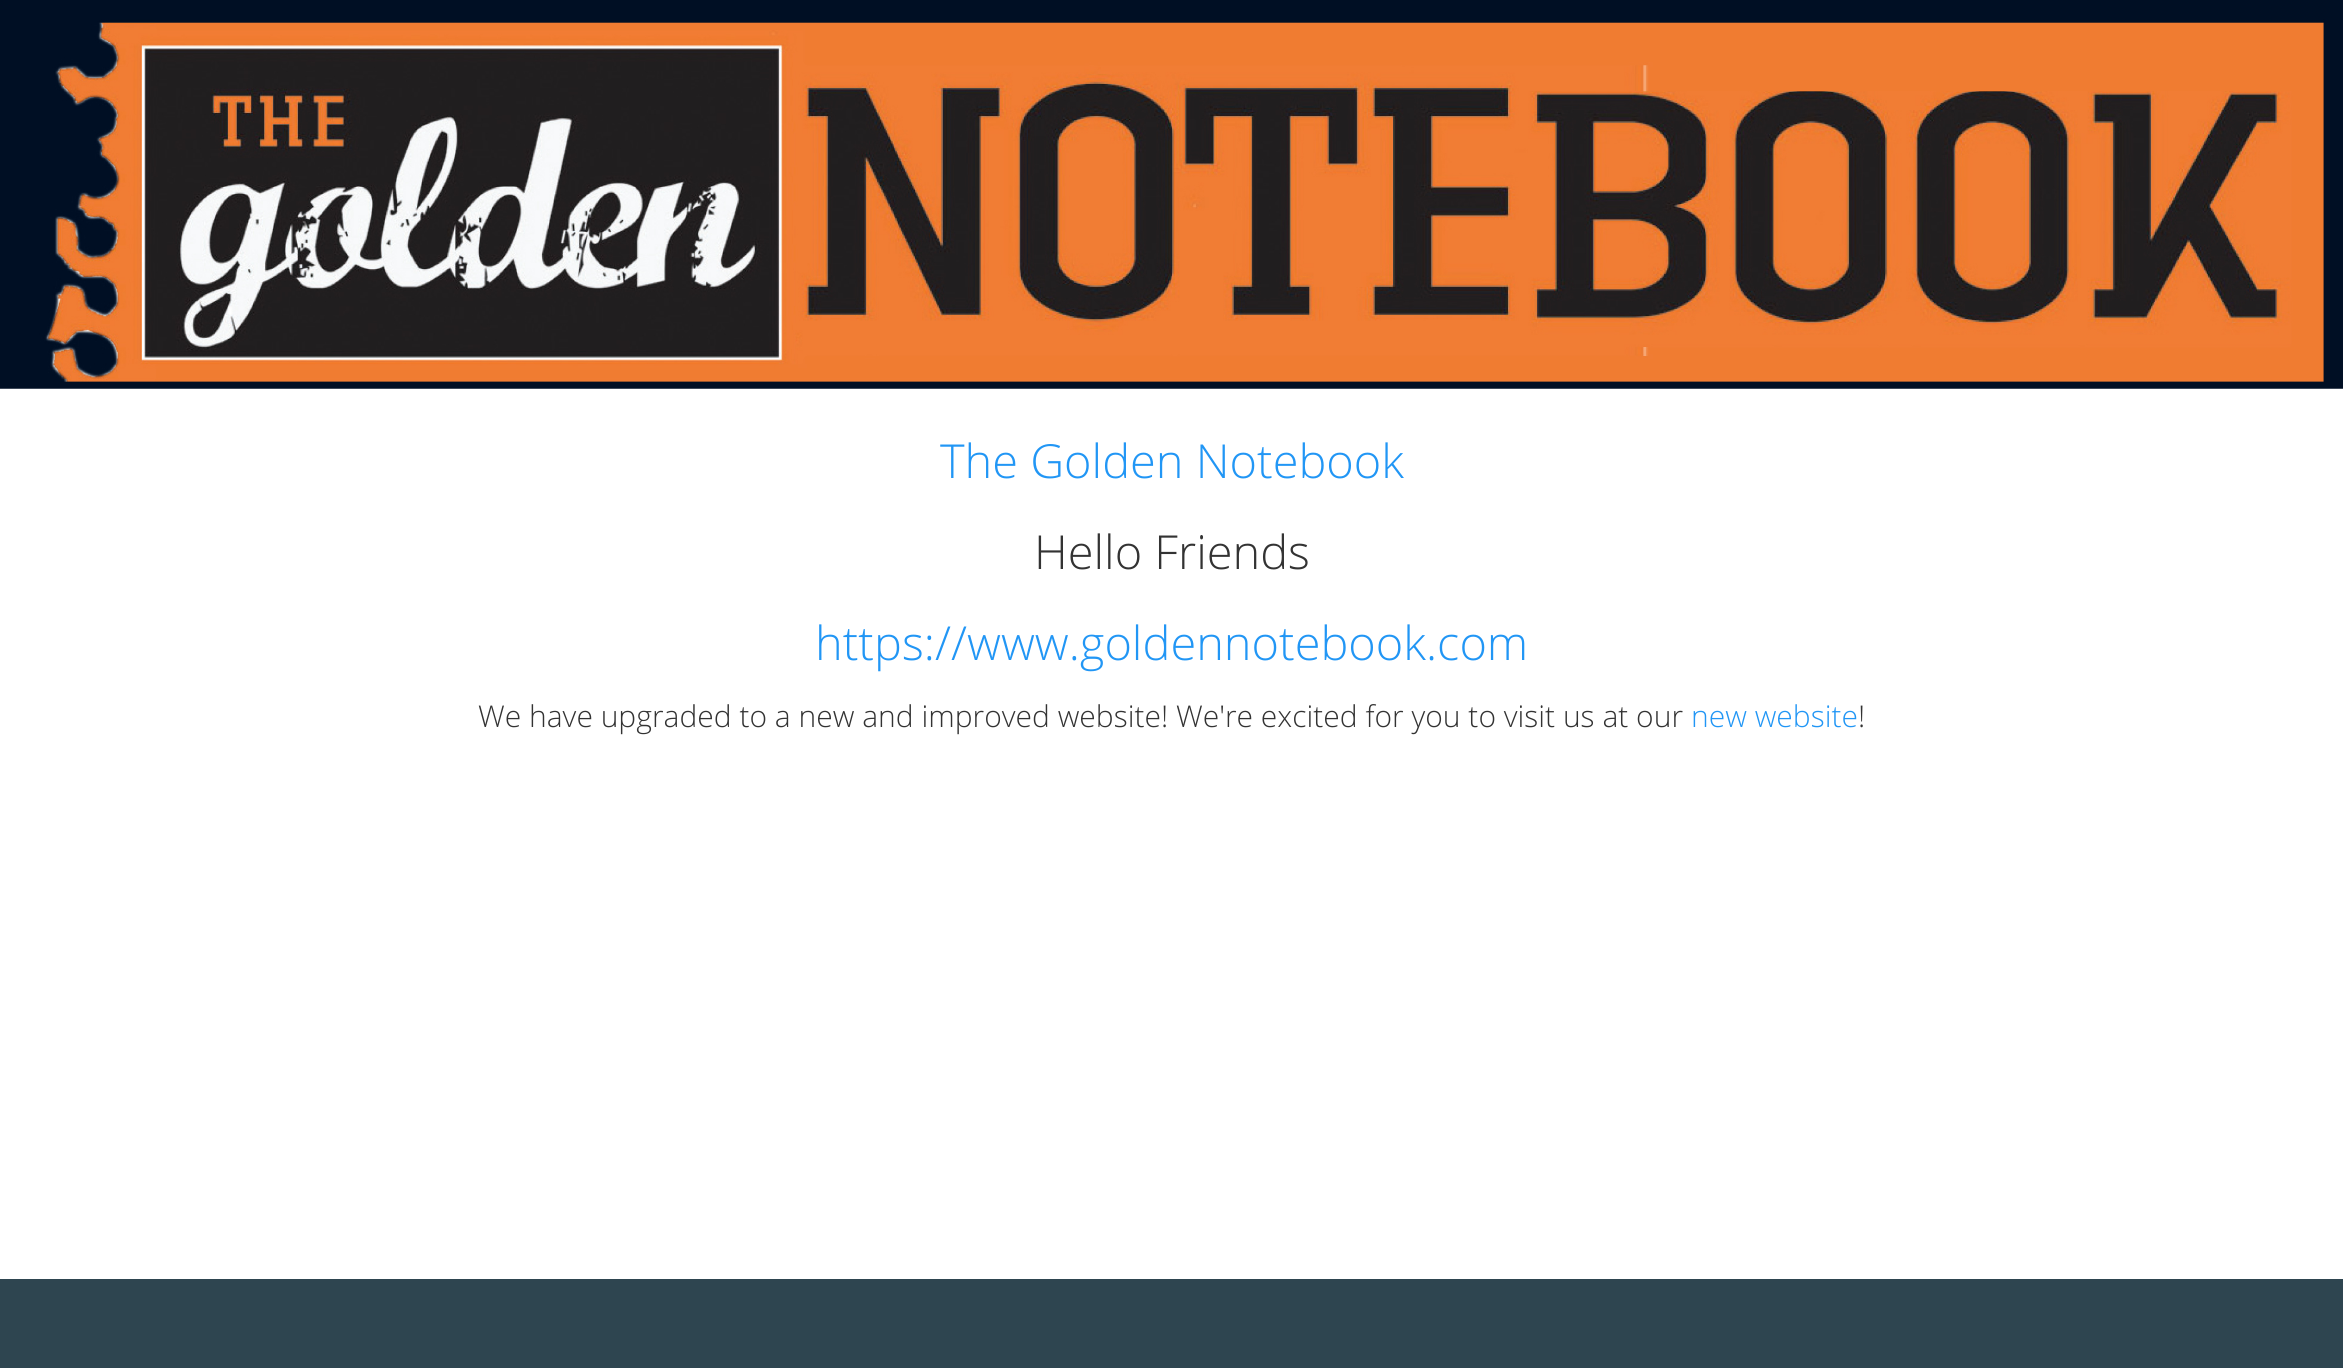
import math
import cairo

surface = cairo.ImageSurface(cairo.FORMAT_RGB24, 2343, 1368)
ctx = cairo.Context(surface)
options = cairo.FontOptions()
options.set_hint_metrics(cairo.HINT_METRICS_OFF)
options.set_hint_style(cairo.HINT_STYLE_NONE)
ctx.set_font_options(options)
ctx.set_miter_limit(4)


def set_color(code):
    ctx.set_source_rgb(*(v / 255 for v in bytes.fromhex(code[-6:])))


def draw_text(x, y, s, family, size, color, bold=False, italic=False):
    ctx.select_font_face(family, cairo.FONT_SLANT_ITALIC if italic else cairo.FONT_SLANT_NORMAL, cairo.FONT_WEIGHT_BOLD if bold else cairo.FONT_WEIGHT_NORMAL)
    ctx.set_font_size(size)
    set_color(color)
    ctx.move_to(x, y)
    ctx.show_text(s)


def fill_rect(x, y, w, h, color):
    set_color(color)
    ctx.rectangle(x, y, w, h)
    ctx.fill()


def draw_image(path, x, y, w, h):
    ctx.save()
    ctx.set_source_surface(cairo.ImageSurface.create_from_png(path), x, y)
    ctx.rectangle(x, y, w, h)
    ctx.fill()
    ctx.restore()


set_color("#ffffff")
ctx.paint()
draw_image("assets/img1.png", 0, 0, 2343, 389)
draw_text(940, 478, "The Golden Notebook", "Open Sans Light", 46.9, "#2196f5")
draw_text(1034, 569, "Hello Friends", "Open Sans Light", 46.9, "#333333")
draw_text(815, 660, "https://www.goldennotebook.com", "Open Sans Light", 46.9, "#2196f5")
draw_text(478, 727, "We have upgraded to a new and improved website! We're excited for you to visit us at our", "Open Sans Light", 30, "#333333")
draw_text(1691, 727, "new website", "Open Sans Light", 30, "#2196f5")
draw_text(1858, 727, "!", "Open Sans Light", 30, "#333333")
fill_rect(0, 1279, 2343, 89, "#2e4550")
surface.write_to_png("output.png")
